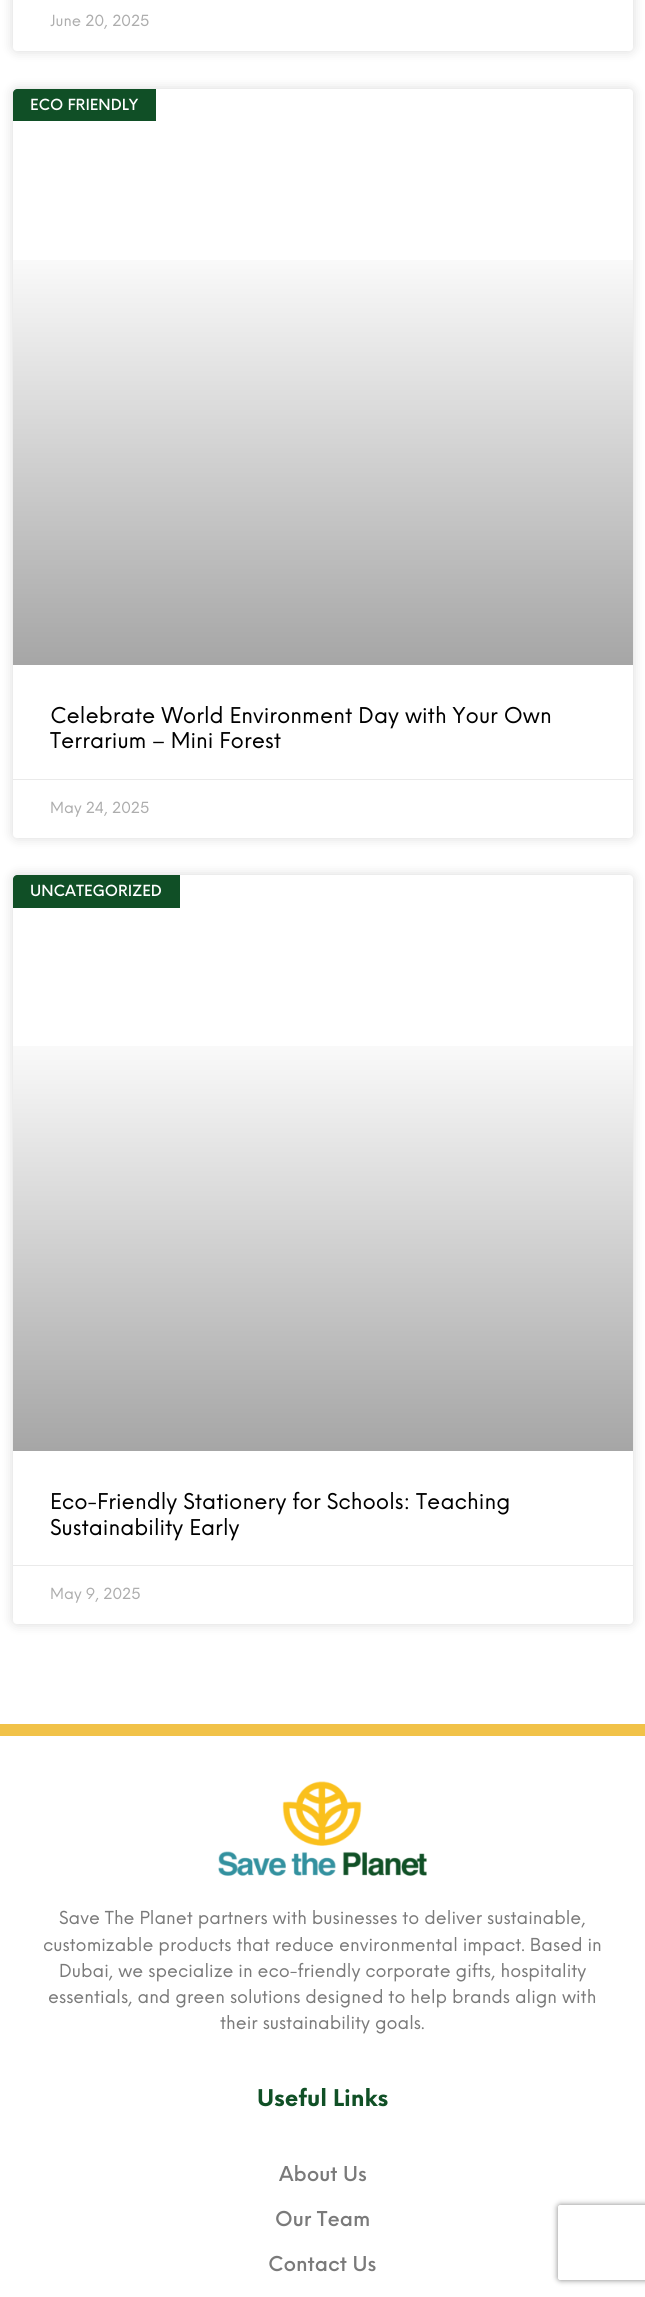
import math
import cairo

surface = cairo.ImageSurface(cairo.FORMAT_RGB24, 645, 2297)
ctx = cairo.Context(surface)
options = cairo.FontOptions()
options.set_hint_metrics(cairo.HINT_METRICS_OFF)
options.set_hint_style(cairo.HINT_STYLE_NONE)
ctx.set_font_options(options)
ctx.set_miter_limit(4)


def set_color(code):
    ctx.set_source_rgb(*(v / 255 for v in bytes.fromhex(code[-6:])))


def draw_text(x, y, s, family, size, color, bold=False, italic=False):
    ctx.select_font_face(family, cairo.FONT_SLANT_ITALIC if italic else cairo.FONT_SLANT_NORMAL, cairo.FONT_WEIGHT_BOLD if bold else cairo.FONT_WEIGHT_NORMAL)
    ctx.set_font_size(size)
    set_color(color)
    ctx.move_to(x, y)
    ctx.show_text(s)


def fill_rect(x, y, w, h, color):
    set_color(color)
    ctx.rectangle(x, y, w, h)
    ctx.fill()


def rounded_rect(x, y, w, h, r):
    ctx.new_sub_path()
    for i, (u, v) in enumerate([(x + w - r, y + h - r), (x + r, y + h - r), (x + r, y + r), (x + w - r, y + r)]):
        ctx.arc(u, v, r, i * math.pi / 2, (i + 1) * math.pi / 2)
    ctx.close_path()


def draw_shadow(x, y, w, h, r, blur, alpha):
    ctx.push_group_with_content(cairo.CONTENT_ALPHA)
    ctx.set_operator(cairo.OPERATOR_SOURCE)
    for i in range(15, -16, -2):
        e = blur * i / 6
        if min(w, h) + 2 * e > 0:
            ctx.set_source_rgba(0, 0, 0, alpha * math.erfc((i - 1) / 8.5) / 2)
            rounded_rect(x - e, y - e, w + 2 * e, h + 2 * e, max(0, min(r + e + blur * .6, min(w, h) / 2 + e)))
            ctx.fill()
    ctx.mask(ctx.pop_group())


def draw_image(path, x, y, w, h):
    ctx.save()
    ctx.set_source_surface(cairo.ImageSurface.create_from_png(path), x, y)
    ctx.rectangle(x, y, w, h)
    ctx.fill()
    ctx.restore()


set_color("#ffffff")
ctx.paint()
set_color("#000000")
draw_shadow(13, -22, 620, 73, 4, 6, 0.15)
set_color("#ffffff")
rounded_rect(13, -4, 620, 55, 4)
ctx.fill()
draw_text(50, 26, "June 20, 2025", "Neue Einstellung", 15, "#adadad")
set_color("#000000")
draw_shadow(13, 89, 620, 749, 4, 6, 0.15)
set_color("#ffffff")
rounded_rect(13, 89, 620, 749, 4)
ctx.fill()
set_color("#104f26")
ctx.new_path()
ctx.move_to(17, 89)
ctx.line_to(156, 89)
ctx.line_to(156, 121)
ctx.line_to(13, 121)
ctx.line_to(13, 93)
ctx.curve_to(13, 91, 15, 89, 17, 89)
ctx.close_path()
ctx.fill()
draw_text(30, 110, "ECO FRIENDLY", "Neue Einstellung Medium", 15, "#ffffff")
gradient = cairo.LinearGradient(323, 665, 323, 89)
gradient.add_color_stop_rgba(0, 0, 0, 0, 0.35)
gradient.add_color_stop_rgba(0.75, 0, 0, 0, 0)
ctx.set_source(gradient)
ctx.rectangle(13, 260, 620, 405)
ctx.fill()
draw_text(50, 723, "Celebrate World Environment Day with Your Own", "Neue Einstellung", 21.25, "#000000")
draw_text(50, 748, "Terrarium – Mini Forest", "Neue Einstellung", 21.25, "#000000")
fill_rect(13, 779, 620, 1, "#eaeaea")
draw_text(50, 813, "May 24, 2025", "Neue Einstellung", 15, "#adadad")
set_color("#000000")
draw_shadow(13, 875, 620, 749, 4, 6, 0.15)
set_color("#ffffff")
rounded_rect(13, 875, 620, 749, 4)
ctx.fill()
set_color("#104f26")
ctx.new_path()
ctx.move_to(17, 875)
ctx.line_to(180, 875)
ctx.line_to(180, 908)
ctx.line_to(13, 908)
ctx.line_to(13, 879)
ctx.curve_to(13, 877, 15, 875, 17, 875)
ctx.close_path()
ctx.fill()
draw_text(30, 896, "UNCATEGORIZED", "Neue Einstellung Medium", 15, "#ffffff")
gradient = cairo.LinearGradient(323, 1451, 323, 875)
gradient.add_color_stop_rgba(0, 0, 0, 0, 0.35)
gradient.add_color_stop_rgba(0.75, 0, 0, 0, 0)
ctx.set_source(gradient)
ctx.rectangle(13, 1046, 620, 405)
ctx.fill()
draw_text(50, 1509, "Eco-Friendly Stationery for Schools: Teaching", "Neue Einstellung", 21.25, "#000000")
draw_text(50, 1535, "Sustainability Early", "Neue Einstellung", 21.25, "#000000")
fill_rect(13, 1565, 620, 1, "#eaeaea")
draw_text(50, 1599, "May 9, 2025", "Neue Einstellung", 15, "#adadad")
fill_rect(0, 1724, 645, 12, "#f1c248")
draw_image("assets/img1.png", 218, 1781, 209, 95)
draw_text(59, 1924, "Save The Planet partners with businesses to deliver sustainable,", "Neue Einstellung", 17.5, "#7a7a7a")
draw_text(43, 1951, "customizable products that reduce environmental impact. Based in", "Neue Einstellung", 17.5, "#7a7a7a")
draw_text(59, 1977, "Dubai, we specialize in eco-friendly corporate gifts, hospitality", "Neue Einstellung", 17.5, "#7a7a7a")
draw_text(48, 2003, "essentials, and green solutions designed to help brands align with", "Neue Einstellung", 17.5, "#7a7a7a")
draw_text(220, 2029, "their sustainability goals.", "Neue Einstellung", 17.5, "#7a7a7a")
draw_text(257, 2106, "Useful Links", "Neue Einstellung", 22.5, "#105026", bold=True)
draw_text(279, 2181, "About Us", "Neue Einstellung Medium", 20, "#7a7a7a")
draw_text(275, 2226, "Our Team", "Neue Einstellung Medium", 20, "#7a7a7a")
draw_text(268, 2271, "Contact Us", "Neue Einstellung Medium", 20, "#7a7a7a")
ctx.save()
ctx.set_fill_rule(cairo.FILL_RULE_EVEN_ODD)
ctx.new_path()
ctx.move_to(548, 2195)
ctx.line_to(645, 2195)
ctx.line_to(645, 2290)
ctx.line_to(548, 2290)
ctx.close_path()
ctx.move_to(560.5, 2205)
ctx.line_to(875.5, 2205)
ctx.curve_to(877, 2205, 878, 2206, 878, 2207.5)
ctx.line_to(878, 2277.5)
ctx.curve_to(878, 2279, 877, 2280, 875.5, 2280)
ctx.line_to(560.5, 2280)
ctx.curve_to(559, 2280, 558, 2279, 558, 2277.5)
ctx.line_to(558, 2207.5)
ctx.curve_to(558, 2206, 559, 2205, 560.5, 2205)
ctx.close_path()
ctx.clip()
set_color("#808080")
draw_shadow(558, 2205, 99, 75, 2.5, 3, 1)
ctx.restore()
surface.write_to_png("output.png")
